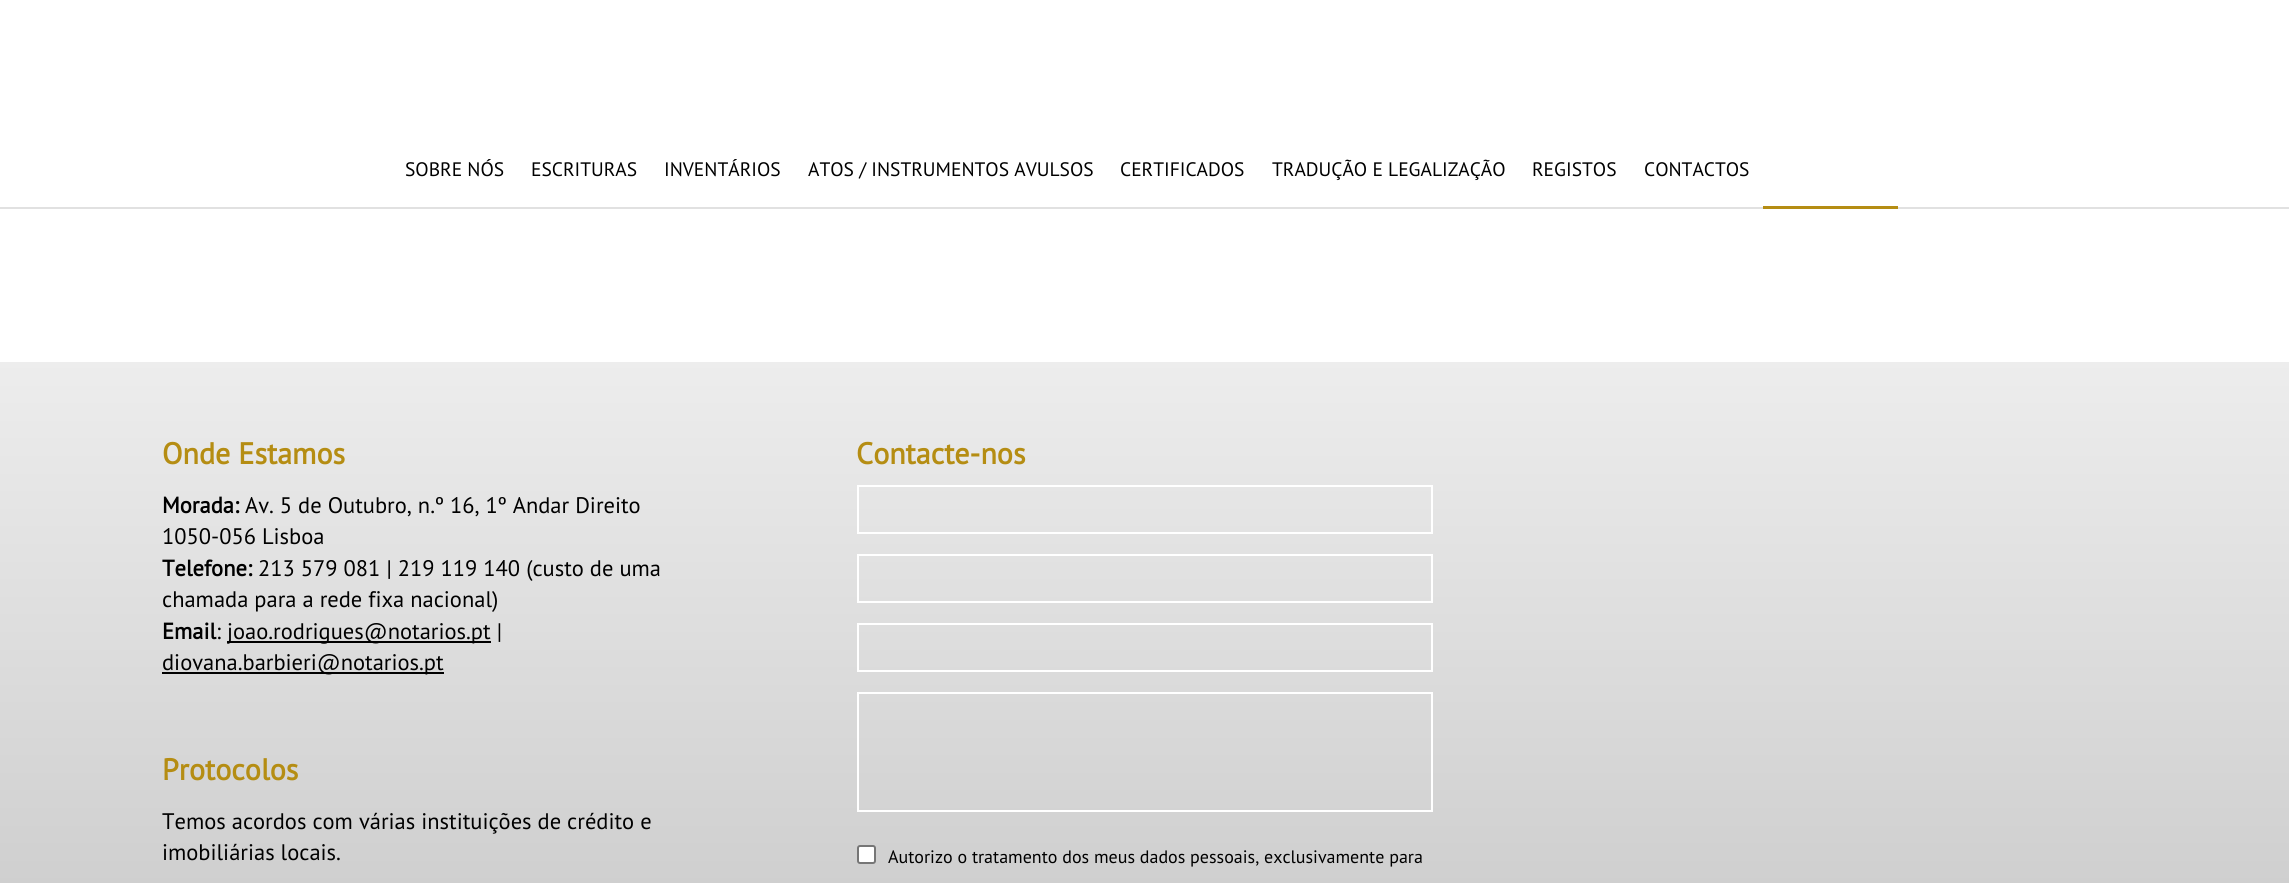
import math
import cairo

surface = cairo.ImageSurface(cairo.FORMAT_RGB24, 2289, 883)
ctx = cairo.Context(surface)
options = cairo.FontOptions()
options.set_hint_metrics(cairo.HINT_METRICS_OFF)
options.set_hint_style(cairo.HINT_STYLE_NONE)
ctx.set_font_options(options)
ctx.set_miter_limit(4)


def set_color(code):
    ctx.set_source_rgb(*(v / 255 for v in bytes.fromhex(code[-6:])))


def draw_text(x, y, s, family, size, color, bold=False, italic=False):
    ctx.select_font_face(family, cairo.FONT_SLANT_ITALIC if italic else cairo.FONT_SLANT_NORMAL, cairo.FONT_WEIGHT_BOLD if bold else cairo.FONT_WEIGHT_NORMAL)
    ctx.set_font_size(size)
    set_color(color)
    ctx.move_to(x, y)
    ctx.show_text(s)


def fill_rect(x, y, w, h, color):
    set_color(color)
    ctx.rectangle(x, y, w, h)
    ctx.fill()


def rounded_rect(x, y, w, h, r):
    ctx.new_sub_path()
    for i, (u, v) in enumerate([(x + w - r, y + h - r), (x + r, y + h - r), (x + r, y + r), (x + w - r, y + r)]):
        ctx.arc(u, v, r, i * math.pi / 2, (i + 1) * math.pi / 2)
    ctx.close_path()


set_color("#ffffff")
ctx.paint()
fill_rect(0, 207, 2289, 2, "#e1e1e1")
draw_text(405, 176, "SOBRE NÓS", "PT Sans", 19.5, "#000000")
draw_text(531, 176, "ESCRITURAS", "PT Sans", 19.5, "#000000")
draw_text(664, 176, "INVENTÁRIOS", "PT Sans", 19.5, "#000000")
draw_text(808, 176, "ATOS / INSTRUMENTOS AVULSOS", "PT Sans", 19.5, "#000000")
draw_text(1120, 176, "CERTIFICADOS", "PT Sans", 19.5, "#000000")
draw_text(1272, 176, "TRADUÇÃO E LEGALIZAÇÃO", "PT Sans", 19.5, "#000000")
draw_text(1532, 176, "REGISTOS", "PT Sans", 19.5, "#000000")
draw_text(1644, 176, "CONTACTOS", "PT Sans", 19.5, "#000000")
fill_rect(1763, 206, 135, 3, "#b58d13")
gradient = cairo.LinearGradient(1145, 361, 1145, 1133)
gradient.add_color_stop_rgba(0, 0.929, 0.929, 0.929, 1)
gradient.add_color_stop_rgba(1, 0.757, 0.757, 0.757, 1)
ctx.set_source(gradient)
ctx.rectangle(0, 362, 2289, 521)
ctx.fill()
draw_text(162, 464, "Onde Estamos", "PT Sans", 30, "#b58d13", bold=True)
draw_text(162, 513, "Morada:", "PT Sans", 22.5, "#000000", bold=True)
draw_text(245, 513, "Av. 5 de Outubro, n.º 16, 1º Andar Direito", "PT Sans", 22.5, "#000000")
draw_text(162, 544, "1050-056 Lisboa", "PT Sans", 22.5, "#000000")
draw_text(162, 576, "Telefone:", "PT Sans", 22.5, "#000000", bold=True)
draw_text(258, 576, "213 579 081 | 219 119 140 (custo de uma", "PT Sans", 22.5, "#000000")
draw_text(162, 607, "chamada para a rede fixa nacional)", "PT Sans", 22.5, "#000000")
draw_text(162, 639, "Email", "PT Sans", 22.5, "#000000", bold=True)
draw_text(216, 639, ":", "PT Sans", 22.5, "#000000")
fill_rect(227, 641, 264, 2, "#000000")
draw_text(227, 639, "joao.rodrigues@notarios.pt |", "PT Sans", 22.5, "#000000")
fill_rect(162, 672, 282, 2, "#000000")
draw_text(162, 670, "diovana.barbieri@notarios.pt", "PT Sans", 22.5, "#000000")
draw_text(162, 780, "Protocolos", "PT Sans", 30, "#b58d13", bold=True)
draw_text(162, 829, "Temos acordos com várias instituições de crédito e", "PT Sans", 22.5, "#000000")
draw_text(162, 860, "imobiliárias locais.", "PT Sans", 22.5, "#000000")
draw_text(856, 464, "Contacte-nos", "PT Sans", 30, "#b58d13", bold=True)
ctx.rectangle(858, 486, 574, 47)
set_color("#ffffff")
ctx.stroke()
ctx.rectangle(858, 555, 574, 47)
ctx.stroke()
ctx.rectangle(858, 624, 574, 47)
ctx.stroke()
ctx.rectangle(858, 693, 574, 118)
ctx.stroke()
rounded_rect(858, 846, 17, 17, 2)
ctx.fill_preserve()
set_color("#767676")
ctx.stroke()
draw_text(888, 863, "Autorizo o tratamento dos meus dados pessoais, exclusivamente para", "PT Sans", 18, "#000000")
surface.write_to_png("output.png")
